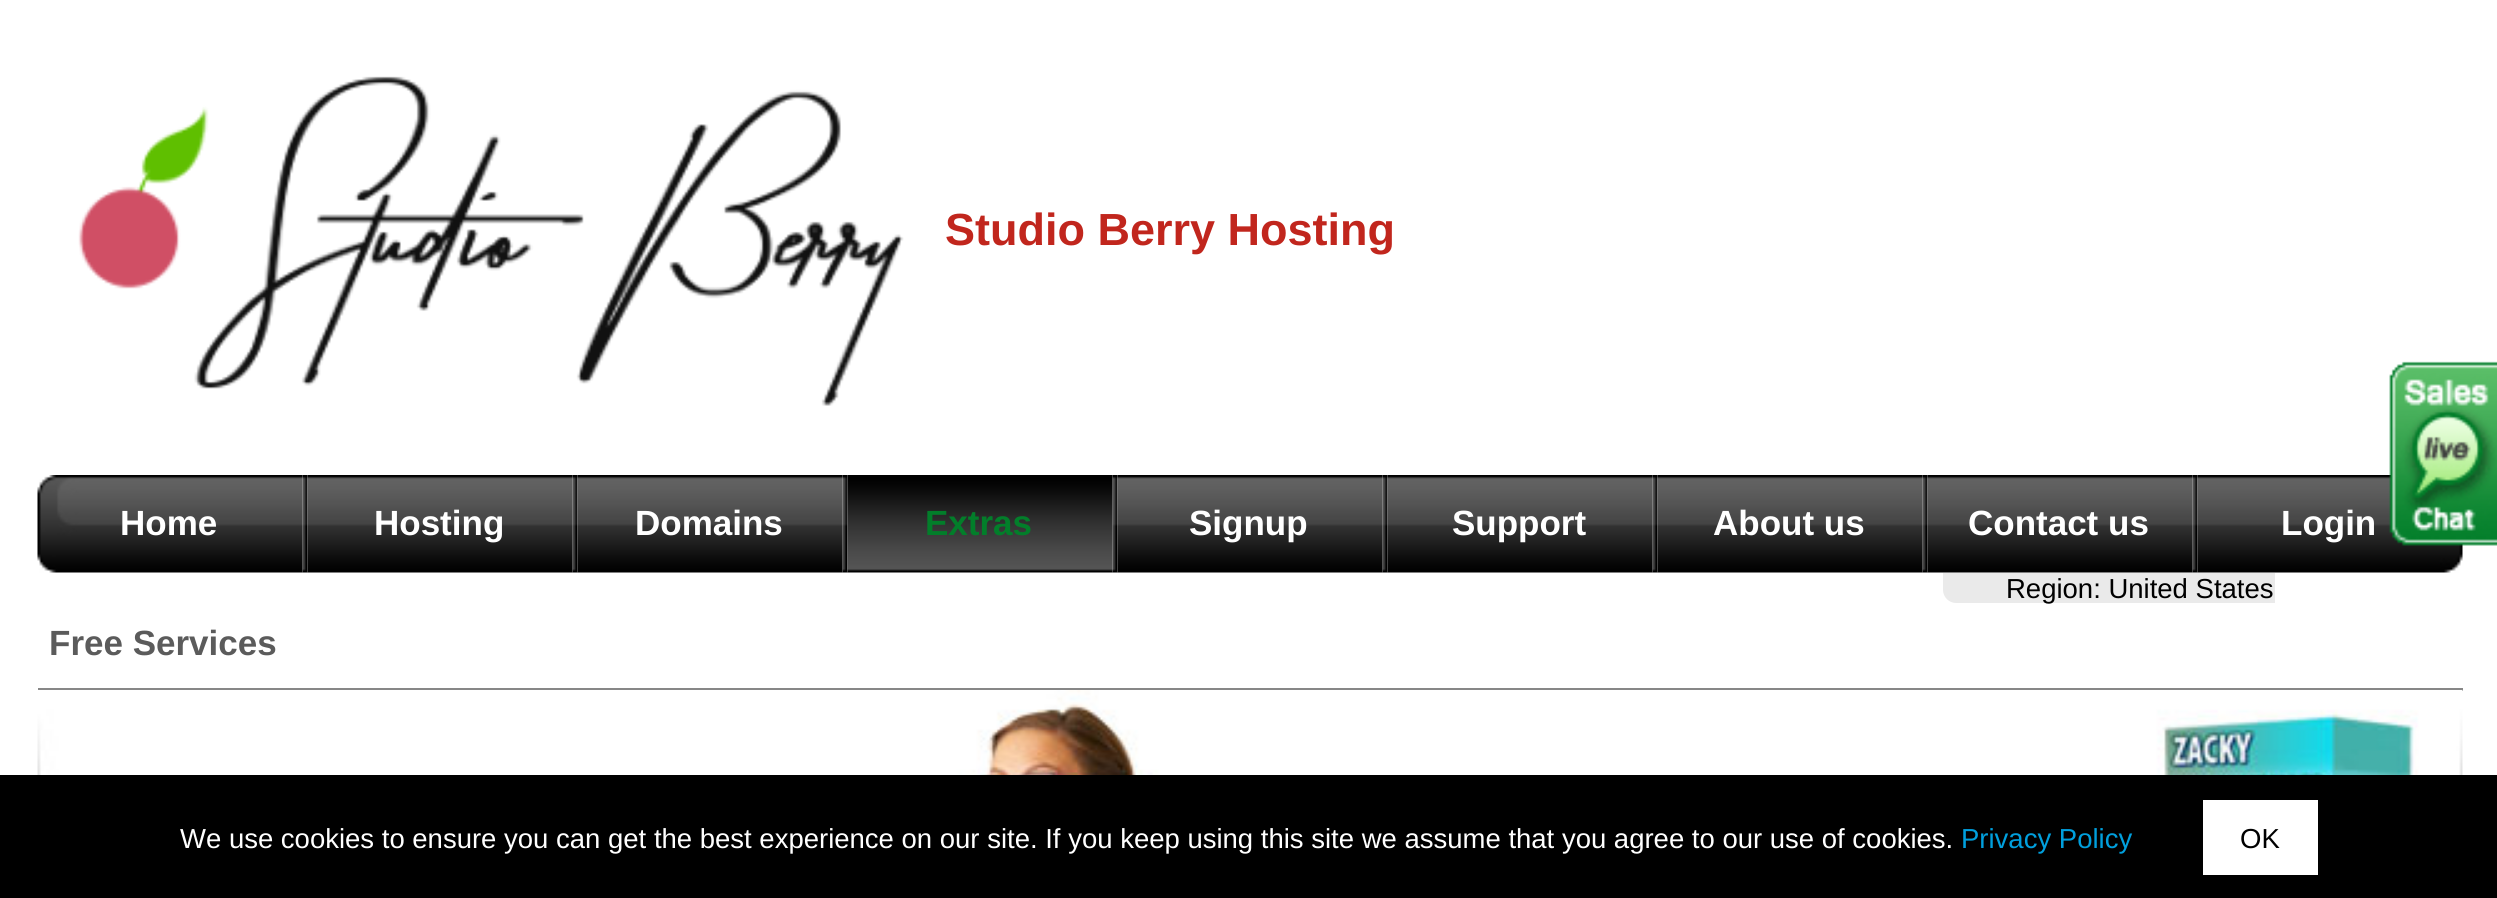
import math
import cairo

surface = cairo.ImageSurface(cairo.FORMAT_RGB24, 2497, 898)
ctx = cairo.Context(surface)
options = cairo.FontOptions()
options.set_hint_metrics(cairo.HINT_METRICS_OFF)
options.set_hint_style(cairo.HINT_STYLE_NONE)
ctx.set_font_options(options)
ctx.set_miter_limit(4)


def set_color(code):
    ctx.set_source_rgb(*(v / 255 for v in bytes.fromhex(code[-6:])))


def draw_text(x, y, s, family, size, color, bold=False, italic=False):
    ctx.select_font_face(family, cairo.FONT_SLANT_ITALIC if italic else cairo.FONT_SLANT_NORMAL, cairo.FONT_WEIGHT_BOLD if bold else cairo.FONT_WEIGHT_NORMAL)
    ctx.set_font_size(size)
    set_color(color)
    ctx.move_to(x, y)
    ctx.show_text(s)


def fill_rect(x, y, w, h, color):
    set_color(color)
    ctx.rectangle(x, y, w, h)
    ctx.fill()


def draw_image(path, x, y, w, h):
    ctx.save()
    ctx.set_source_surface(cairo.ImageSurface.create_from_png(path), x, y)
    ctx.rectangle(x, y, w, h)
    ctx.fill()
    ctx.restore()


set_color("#ffffff")
ctx.paint()
draw_image("assets/img1.png", 78, 76, 826, 330)
draw_text(945, 245, "Studio Berry Hosting", "Liberation Sans", 45, "#c1261d", bold=True)
draw_image("assets/img2.png", 302, 475, 6, 98)
draw_image("assets/img3.png", 37, 475, 266, 98)
draw_text(120, 535, "Home", "Liberation Sans", 35, "#ffffff", bold=True)
draw_image("assets/img2.png", 572, 475, 6, 98)
draw_image("assets/img4.png", 307, 475, 266, 98)
draw_text(374, 535, "Hosting", "Liberation Sans", 35, "#ffffff", bold=True)
draw_image("assets/img2.png", 842, 475, 6, 98)
draw_image("assets/img4.png", 577, 475, 266, 98)
draw_text(635, 535, "Domains", "Liberation Sans", 35, "#ffffff", bold=True)
draw_image("assets/img2.png", 1112, 475, 6, 98)
draw_image("assets/img5.png", 847, 475, 266, 98)
draw_text(925, 535, "Extras", "Liberation Sans", 35, "#027e2a", bold=True)
draw_image("assets/img2.png", 1382, 475, 6, 98)
draw_image("assets/img4.png", 1117, 475, 266, 98)
draw_text(1189, 535, "Signup", "Liberation Sans", 35, "#ffffff", bold=True)
draw_image("assets/img2.png", 1652, 475, 6, 98)
draw_image("assets/img4.png", 1387, 475, 266, 98)
draw_text(1452, 535, "Support", "Liberation Sans", 35, "#ffffff", bold=True)
draw_image("assets/img2.png", 1922, 475, 6, 98)
draw_image("assets/img4.png", 1657, 475, 266, 98)
draw_text(1713, 535, "About us", "Liberation Sans", 35, "#ffffff", bold=True)
draw_image("assets/img2.png", 2192, 475, 6, 98)
draw_image("assets/img4.png", 1927, 475, 266, 98)
draw_text(1968, 535, "Contact us", "Liberation Sans", 35, "#ffffff", bold=True)
draw_image("assets/img6.png", 2197, 475, 266, 98)
draw_text(2281, 535, "Login", "Liberation Sans", 35, "#ffffff", bold=True)
draw_image("assets/img7.png", 2389, 361, 108, 185)
set_color("#eaeaea")
ctx.new_path()
ctx.move_to(1943, 573)
ctx.line_to(2100, 573)
ctx.line_to(2100, 603)
ctx.line_to(1956, 603)
ctx.curve_to(1949, 603, 1943, 597, 1943, 590)
ctx.close_path()
ctx.fill()
fill_rect(2100, 573, 175, 30, "#eaeaea")
draw_text(2006, 598, "Region: United States", "Liberation Sans", 27.5, "#000000")
fill_rect(38, 688, 2425, 3, "#878787")
draw_text(49, 655, "Free Services", "Liberation Sans", 35, "#5b5b5b", bold=True)
draw_image("assets/img8.png", 37, 690, 2426, 85)
fill_rect(0, 775, 2497, 123, "#000000")
draw_text(180, 848, "We use cookies to ensure you can get the best experience on our site. If you keep using this site we assume that you agree to our use of cookies.", "Liberation Sans", 27.5, "#ffffff")
draw_text(1961, 848, "Privacy Policy", "Liberation Sans", 27.5, "#009fdd")
fill_rect(2203, 800, 115, 75, "#ffffff")
draw_text(2240, 848, "OK", "Liberation Sans", 27.5, "#000000")
surface.write_to_png("output.png")
